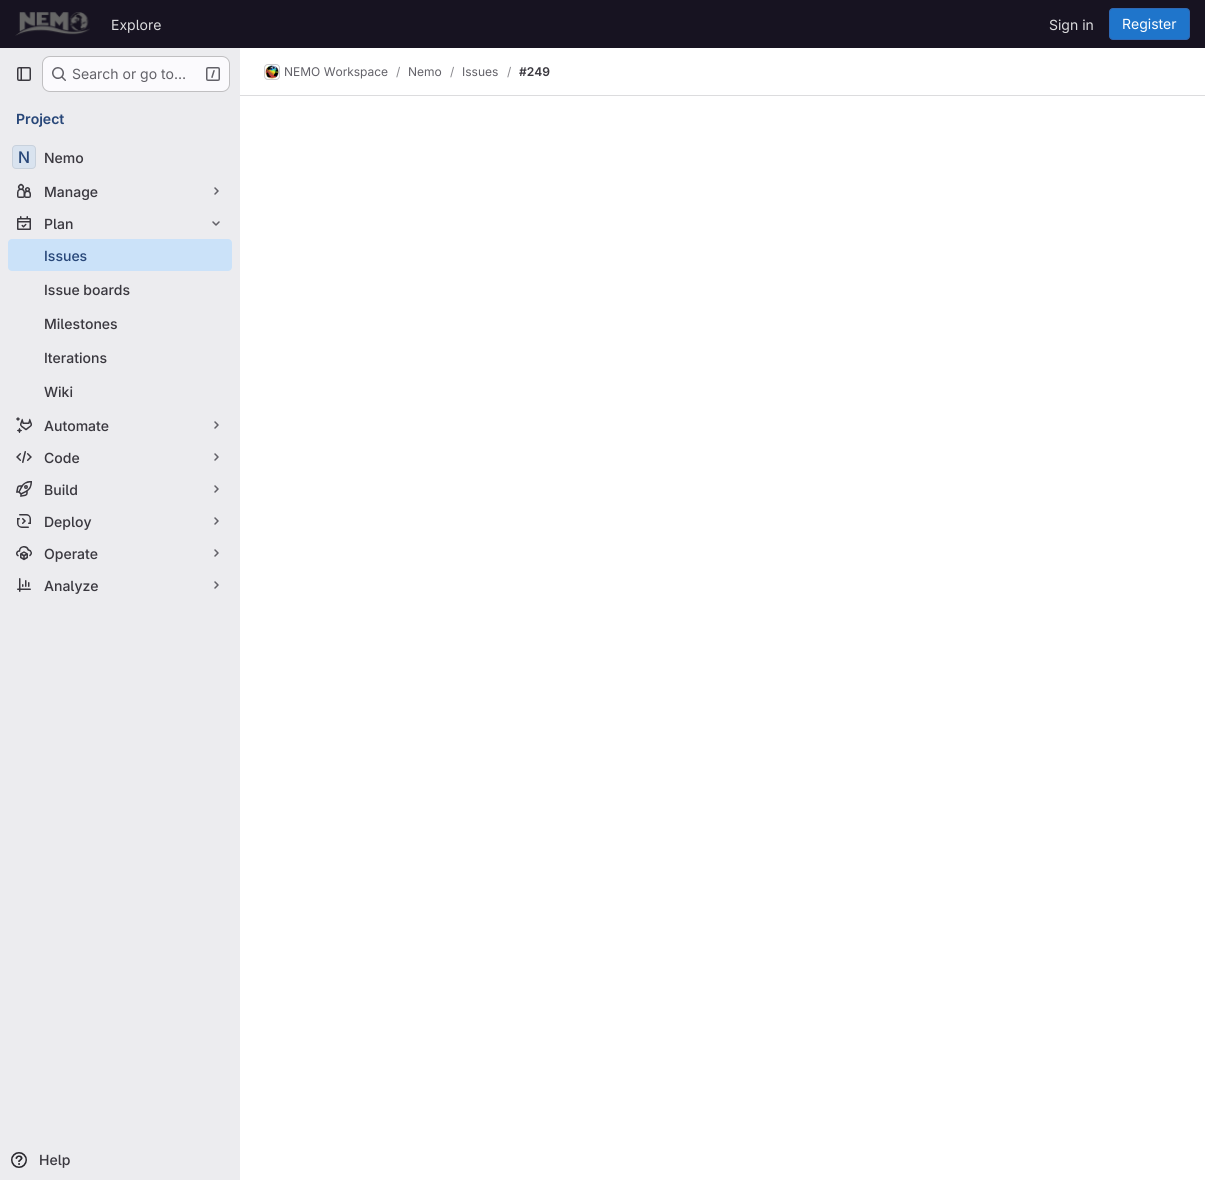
import math
import cairo

surface = cairo.ImageSurface(cairo.FORMAT_RGB24, 1205, 1180)
ctx = cairo.Context(surface)
options = cairo.FontOptions()
options.set_hint_metrics(cairo.HINT_METRICS_OFF)
options.set_hint_style(cairo.HINT_STYLE_NONE)
ctx.set_font_options(options)
ctx.set_miter_limit(4)


def set_color(code):
    ctx.set_source_rgb(*(v / 255 for v in bytes.fromhex(code[-6:])))


def draw_text(x, y, s, family, size, color, bold=False, italic=False):
    ctx.select_font_face(family, cairo.FONT_SLANT_ITALIC if italic else cairo.FONT_SLANT_NORMAL, cairo.FONT_WEIGHT_BOLD if bold else cairo.FONT_WEIGHT_NORMAL)
    ctx.set_font_size(size)
    set_color(color)
    ctx.move_to(x, y)
    ctx.show_text(s)


def fill_rect(x, y, w, h, color):
    set_color(color)
    ctx.rectangle(x, y, w, h)
    ctx.fill()


def rounded_rect(x, y, w, h, r):
    ctx.new_sub_path()
    for i, (u, v) in enumerate([(x + w - r, y + h - r), (x + r, y + h - r), (x + r, y + r), (x + w - r, y + r)]):
        ctx.arc(u, v, r, i * math.pi / 2, (i + 1) * math.pi / 2)
    ctx.close_path()


def draw_image(path, x, y, w, h):
    ctx.save()
    ctx.set_source_surface(cairo.ImageSurface.create_from_png(path), x, y)
    ctx.rectangle(x, y, w, h)
    ctx.fill()
    ctx.restore()


set_color("#ffffff")
ctx.paint()
fill_rect(0, 0, 1205, 48, "#171321")
draw_image("assets/img1.png", 15, 12, 75, 24)
draw_text(111, 30, "Explore", "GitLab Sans", 14, "#dcdcde")
draw_text(1049, 30, "Sign in", "GitLab Sans", 14, "#dcdcde")
set_color("#1f75cb")
rounded_rect(1109.5, 8.5, 80, 31, 3.5)
ctx.fill_preserve()
set_color("#2f68b4")
ctx.set_line_width(1)
ctx.stroke()
draw_text(1122, 29, "Register", "GitLab Sans", 14, "#ffffff")
fill_rect(0, 48, 240, 1132, "#ececef")
draw_image("assets/img2.png", 17, 67, 14, 14)
set_color("#fbfafd")
rounded_rect(42, 56, 188, 36, 8)
ctx.fill()
rounded_rect(42.5, 56.5, 187, 35, 7.5)
ctx.set_source_rgba(0.02, 0.02, 0.024, 0.24)
ctx.stroke()
draw_image("assets/img3.png", 52, 67, 14, 14)
draw_text(72, 79, "Search or go to…", "GitLab Sans", 14, "#626168")
draw_image("assets/img4.png", 206, 67, 14, 14)
draw_text(16, 124, "Project", "GitLab Sans SemiBold", 14, "#284779")
set_color("#d9e3ef")
rounded_rect(12, 145, 24, 24, 4)
ctx.fill()
rounded_rect(12.5, 145.5, 23, 23, 3.5)
ctx.set_source_rgba(0.02, 0.02, 0.024, 0.08)
ctx.stroke()
draw_text(18, 163, "N", "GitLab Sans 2 Medium", 16, "#284779")
draw_text(44, 163, "Nemo", "GitLab Sans Medium", 14, "#3a383f")
draw_image("assets/img5.png", 17, 183, 14, 15)
draw_text(44, 197, "Manage", "GitLab Sans Medium", 14, "#3a383f")
ctx.new_path()
ctx.move_to(215, 188)
ctx.line_to(218, 191)
ctx.line_to(215, 194)
set_color("#626168")
ctx.set_line_width(1.5)
ctx.set_line_cap(cairo.LINE_CAP_ROUND)
ctx.set_line_join(cairo.LINE_JOIN_ROUND)
ctx.stroke()
draw_image("assets/img6.png", 17, 216, 14, 14)
draw_text(44, 229, "Plan", "GitLab Sans Medium", 14, "#3a383f")
ctx.new_path()
ctx.move_to(219, 222)
ctx.line_to(216, 225)
ctx.line_to(213, 222)
set_color("#626168")
ctx.stroke()
set_color("#cbe2f9")
rounded_rect(8, 239, 224, 32, 4)
ctx.fill()
draw_text(44, 261, "Issues", "GitLab Sans Medium", 14, "#284779")
draw_text(44, 295, "Issue boards", "GitLab Sans Medium", 14, "#3a383f")
draw_text(44, 329, "Milestones", "GitLab Sans Medium", 14, "#3a383f")
draw_text(44, 363, "Iterations", "GitLab Sans Medium", 14, "#3a383f")
draw_text(44, 397, "Wiki", "GitLab Sans Medium", 14, "#3a383f")
draw_image("assets/img7.png", 16, 417, 16, 16)
draw_text(44, 431, "Automate", "GitLab Sans Medium", 14, "#3a383f")
ctx.new_path()
ctx.move_to(215, 422)
ctx.line_to(218, 425)
ctx.line_to(215, 428)
set_color("#626168")
ctx.stroke()
draw_image("assets/img8.png", 16, 451, 16, 12)
draw_text(44, 463, "Code", "GitLab Sans Medium", 14, "#3a383f")
ctx.new_path()
ctx.move_to(215, 454)
ctx.line_to(218, 457)
ctx.line_to(215, 460)
set_color("#626168")
ctx.stroke()
draw_image("assets/img9.png", 16, 481, 16, 16)
draw_text(44, 495, "Build", "GitLab Sans Medium", 14, "#3a383f")
ctx.new_path()
ctx.move_to(215, 486)
ctx.line_to(218, 489)
ctx.line_to(215, 492)
set_color("#626168")
ctx.stroke()
draw_image("assets/img10.png", 17, 514, 14, 14)
draw_text(44, 527, "Deploy", "GitLab Sans Medium", 14, "#3a383f")
ctx.new_path()
ctx.move_to(215, 518)
ctx.line_to(218, 521)
ctx.line_to(215, 524)
set_color("#626168")
ctx.stroke()
draw_image("assets/img11.png", 16, 546, 16, 15)
draw_text(44, 559, "Operate", "GitLab Sans Medium", 14, "#3a383f")
ctx.new_path()
ctx.move_to(215, 550)
ctx.line_to(218, 553)
ctx.line_to(215, 556)
set_color("#626168")
ctx.stroke()
draw_image("assets/img12.png", 17, 578, 14, 14)
draw_text(44, 591, "Analyze", "GitLab Sans Medium", 14, "#3a383f")
ctx.new_path()
ctx.move_to(215, 582)
ctx.line_to(218, 585)
ctx.line_to(215, 588)
set_color("#626168")
ctx.stroke()
draw_image("assets/img13.png", 11, 1152, 16, 16)
draw_text(39, 1165, "Help", "GitLab Sans Medium", 14, "#3a383f")
fill_rect(240, 95, 965, 1, "#dcdcde")
rounded_rect(264.5, 64.5, 15, 15, 3.5)
ctx.set_line_width(1)
ctx.set_line_cap(cairo.LINE_CAP_BUTT)
ctx.set_line_join(cairo.LINE_JOIN_MITER)
ctx.stroke()
draw_image("assets/img14.png", 265, 65, 14, 14)
rounded_rect(264.5, 64.5, 15, 15, 3.5)
ctx.set_source_rgba(0.02, 0.02, 0.024, 0.08)
ctx.stroke()
draw_text(284, 76, "NEMO Workspace", "GitLab Sans", 12, "#626168")
draw_text(396, 76, "/", "GitLab Sans", 12, "#89888d")
draw_text(408, 76, "Nemo", "GitLab Sans", 12, "#626168")
draw_text(450, 76, "/", "GitLab Sans", 12, "#89888d")
draw_text(462, 76, "Issues", "GitLab Sans", 12, "#626168")
draw_text(507, 76, "/", "GitLab Sans", 12, "#89888d")
draw_text(519, 76, "#249", "GitLab Sans SemiBold", 12, "#3a383f")
surface.write_to_png("output.png")
